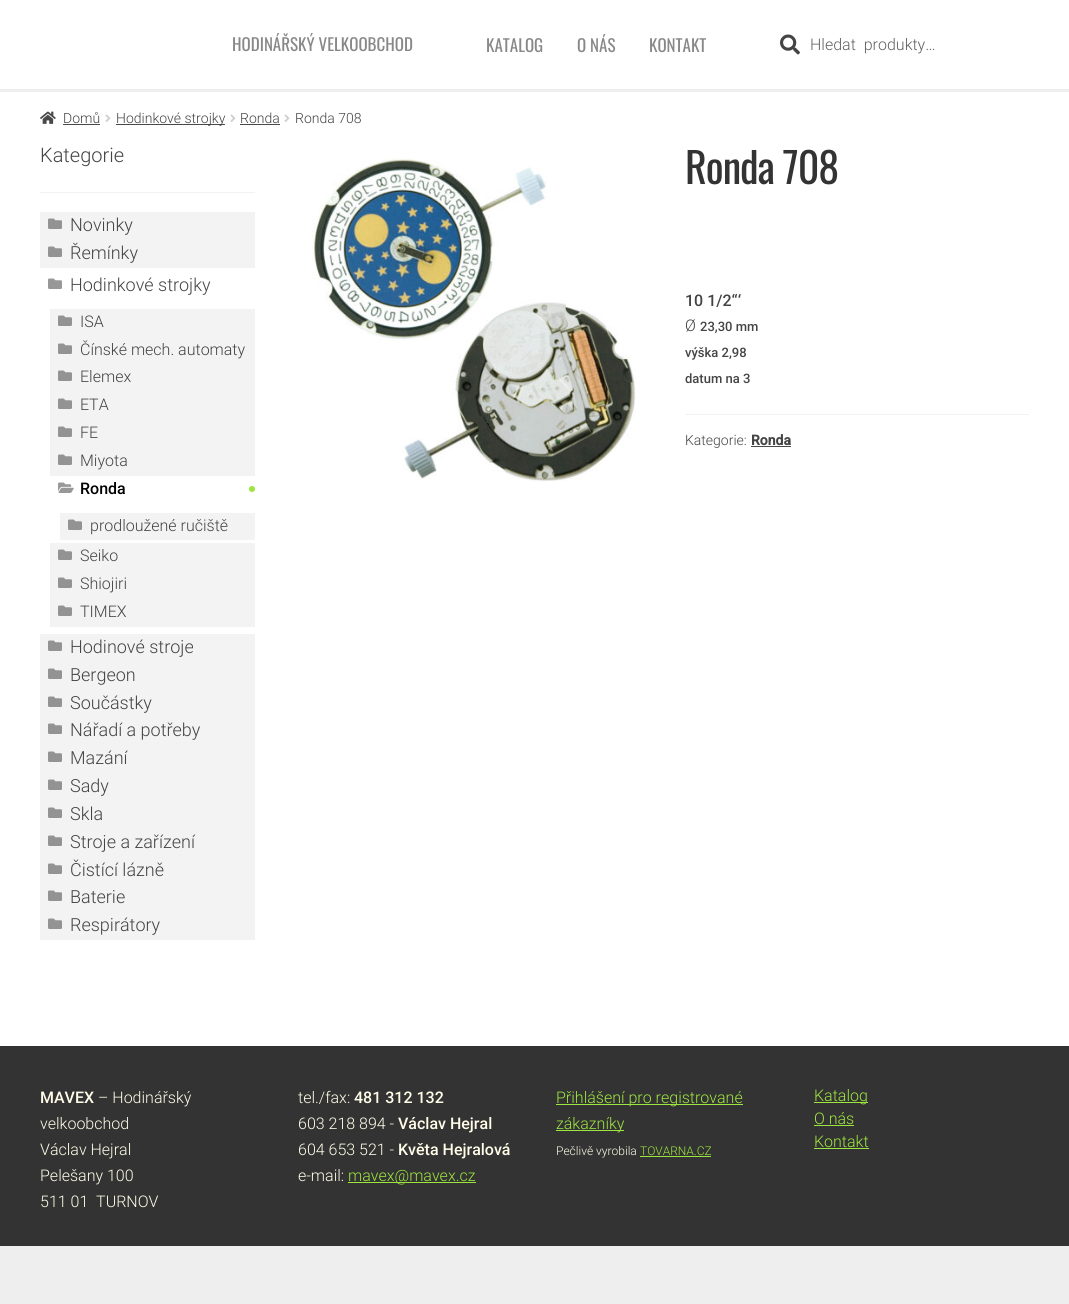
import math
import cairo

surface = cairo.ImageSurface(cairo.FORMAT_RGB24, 1069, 1304)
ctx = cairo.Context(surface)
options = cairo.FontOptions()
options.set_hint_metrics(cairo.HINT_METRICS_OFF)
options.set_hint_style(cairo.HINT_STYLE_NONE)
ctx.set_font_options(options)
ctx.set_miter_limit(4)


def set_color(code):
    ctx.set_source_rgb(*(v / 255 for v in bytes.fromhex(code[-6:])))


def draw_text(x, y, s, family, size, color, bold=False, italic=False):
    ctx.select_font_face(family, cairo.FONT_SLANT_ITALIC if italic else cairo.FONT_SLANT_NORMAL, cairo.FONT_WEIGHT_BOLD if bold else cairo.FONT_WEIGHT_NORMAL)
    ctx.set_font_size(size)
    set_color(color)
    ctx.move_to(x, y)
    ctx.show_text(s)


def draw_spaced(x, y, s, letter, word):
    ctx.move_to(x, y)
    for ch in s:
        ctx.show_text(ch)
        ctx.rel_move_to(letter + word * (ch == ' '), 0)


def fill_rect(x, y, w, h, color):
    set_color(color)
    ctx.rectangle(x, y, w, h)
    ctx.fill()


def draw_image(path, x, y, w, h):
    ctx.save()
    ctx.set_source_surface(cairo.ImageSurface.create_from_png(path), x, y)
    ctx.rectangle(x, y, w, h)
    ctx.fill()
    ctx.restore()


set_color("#eeeeee")
ctx.paint()
fill_rect(0, 0, 1069, 89, "#ffffff")
draw_text(232, 51, "HODINÁŘSKÝ VELKOOBCHOD", "Oswald", 17, "#888888")
draw_text(486, 52, "KATALOG", "Oswald", 17, "#888888")
draw_text(577, 52, "O NÁS", "Oswald", 17, "#888888")
draw_text(649, 52, "KONTAKT", "Oswald", 17, "#888888")
draw_image("assets/img1.png", 780, 34, 20, 21)
ctx.select_font_face("Roboto Light")
ctx.set_font_size(16)
set_color("#616161")
draw_spaced(810, 50, "Hledat produkty…", 0, 4)
fill_rect(0, 92, 1069, 954, "#ffffff")
draw_image("assets/img2.png", 40, 111, 16, 13)
draw_text(63, 123, "Domů", "Roboto Light", 14, "#444444")
fill_rect(63, 124, 37, 1, "#494949")
draw_image("assets/img3.png", 105, 114, 6, 8)
fill_rect(116, 124, 109, 1, "#494949")
draw_text(116, 123, "Hodinkové strojky", "Roboto Light", 14, "#444444")
draw_image("assets/img3.png", 230, 114, 6, 8)
draw_text(240, 123, "Ronda", "Roboto Light", 14, "#444444")
fill_rect(240, 124, 40, 1, "#494949")
draw_image("assets/img3.png", 284, 114, 6, 8)
draw_text(295, 123, "Ronda 708", "Roboto Light", 14, "#444444")
fill_rect(40, 192, 215, 1, "#f2f2f2")
draw_text(40, 162, "Kategorie", "Roboto Light", 20, "#444444")
fill_rect(40, 212, 215, 56, "#f3f3f3")
draw_image("assets/img4.png", 48, 218, 14, 11)
draw_text(70, 231, "Novinky", "Roboto Light", 18, "#444444")
draw_image("assets/img4.png", 48, 246, 14, 11)
draw_text(70, 259, "Řemínky", "Roboto Light", 18, "#444444")
draw_image("assets/img5.png", 48, 278, 14, 11)
draw_text(70, 291, "Hodinkové strojky", "Roboto Light", 18, "#444444")
fill_rect(50, 309, 205, 167, "#f3f3f3")
draw_image("assets/img4.png", 58, 315, 14, 11)
draw_text(80, 327, "ISA", "Roboto Light", 16, "#444444")
draw_image("assets/img4.png", 58, 343, 14, 11)
draw_text(80, 355, "Čínské mech. automaty", "Roboto Light", 16, "#444444")
draw_image("assets/img4.png", 58, 370, 14, 11)
draw_text(80, 382, "Elemex", "Roboto Light", 16, "#444444")
draw_image("assets/img4.png", 58, 398, 14, 11)
draw_text(80, 410, "ETA", "Roboto Light", 16, "#444444")
draw_image("assets/img4.png", 58, 426, 14, 11)
draw_text(80, 438, "FE", "Roboto Light", 16, "#444444")
draw_image("assets/img4.png", 58, 454, 14, 11)
draw_text(80, 466, "Miyota", "Roboto Light", 16, "#444444")
draw_image("assets/img6.png", 58, 482, 16, 11)
draw_text(80, 494, "Ronda", "Roboto Medium", 16, "#000000")
set_color("#9de53f")
ctx.new_path()
ctx.arc(252, 489, 3, 0, 2 * math.pi)
ctx.fill()
fill_rect(60, 513, 195, 27, "#f3f3f3")
draw_image("assets/img4.png", 68, 519, 14, 11)
draw_text(90, 531, "prodloužené ručiště", "Roboto Light", 16, "#444444")
fill_rect(50, 543, 205, 84, "#f3f3f3")
draw_image("assets/img4.png", 58, 549, 14, 11)
draw_text(80, 561, "Seiko", "Roboto Light", 16, "#444444")
draw_image("assets/img4.png", 58, 577, 14, 11)
draw_text(80, 589, "Shiojiri", "Roboto Light", 16, "#444444")
draw_image("assets/img4.png", 58, 605, 14, 11)
draw_text(80, 617, "TIMEX", "Roboto Light", 16, "#444444")
fill_rect(40, 634, 215, 306, "#f3f3f3")
draw_image("assets/img4.png", 48, 640, 14, 11)
draw_text(70, 653, "Hodinové stroje", "Roboto Light", 18, "#444444")
draw_image("assets/img4.png", 48, 668, 14, 11)
draw_text(70, 681, "Bergeon", "Roboto Light", 18, "#444444")
draw_image("assets/img4.png", 48, 696, 14, 11)
draw_text(70, 709, "Součástky", "Roboto Light", 18, "#444444")
draw_image("assets/img4.png", 48, 723, 14, 11)
draw_text(70, 736, "Nářadí a potřeby", "Roboto Light", 18, "#444444")
draw_image("assets/img4.png", 48, 751, 14, 11)
draw_text(70, 764, "Mazání", "Roboto Light", 18, "#444444")
draw_image("assets/img4.png", 48, 779, 14, 11)
draw_text(70, 792, "Sady", "Roboto Light", 18, "#444444")
draw_image("assets/img4.png", 48, 807, 14, 11)
draw_text(70, 820, "Skla", "Roboto Light", 18, "#444444")
draw_image("assets/img4.png", 48, 835, 14, 11)
draw_text(70, 848, "Stroje a zařízení", "Roboto Light", 18, "#444444")
draw_image("assets/img4.png", 48, 863, 14, 11)
draw_text(70, 876, "Čistící lázně", "Roboto Light", 18, "#444444")
draw_image("assets/img4.png", 48, 890, 14, 11)
draw_text(70, 903, "Baterie", "Roboto Light", 18, "#444444")
draw_image("assets/img4.png", 48, 918, 14, 11)
draw_text(70, 931, "Respirátory", "Roboto Light", 18, "#444444")
draw_image("assets/img7.png", 312, 158, 324, 324)
ctx.select_font_face("Oswald")
ctx.set_font_size(42)
set_color("#333333")
draw_spaced(685, 184, "Ronda 708", -1, 0)
draw_text(685, 306, "10 1/2“‘", "Roboto Medium", 16, "#444444")
draw_text(685, 331, "Ø", "Roboto Light", 16, "#444444")
draw_text(700, 331, "23,30 mm", "Roboto Medium", 13, "#444444")
draw_text(685, 357, "výška 2,98", "Roboto Medium", 13, "#444444")
draw_text(685, 383, "datum na 3", "Roboto Medium", 13, "#444444")
fill_rect(685, 414, 344, 1, "#f2f2f2")
draw_text(685, 445, "Kategorie:", "Roboto Light", 14, "#444444")
draw_text(751, 445, "Ronda", "Roboto", 14, "#444444", bold=True)
fill_rect(751, 446, 40, 1, "#494949")
fill_rect(0, 1046, 1069, 200, "#333333")
draw_text(40, 1103, "MAVEX", "Roboto Medium", 16, "#fffde8")
draw_text(98, 1103, "– Hodinářský", "Roboto Light", 16, "#fffde8")
draw_text(40, 1129, "velkoobchod", "Roboto Light", 16, "#fffde8")
draw_text(40, 1155, "Václav Hejral", "Roboto Light", 16, "#fffde8")
draw_text(40, 1181, "Pelešany 100", "Roboto Light", 16, "#fffde8")
draw_text(40, 1207, "511 01  TURNOV", "Roboto Light", 16, "#fffde8")
draw_text(298, 1103, "tel./fax:", "Roboto Light", 16, "#fffde8")
draw_text(354, 1103, "481 312 132", "Roboto Medium", 16, "#fffde8")
draw_text(298, 1129, "603 218 894 -", "Roboto Light", 16, "#fffde8")
draw_text(398, 1129, "Václav Hejral", "Roboto Medium", 16, "#fffde8")
draw_text(298, 1155, "604 653 521 -", "Roboto Light", 16, "#fffde8")
draw_text(398, 1155, "Květa Hejralová", "Roboto Medium", 16, "#fffde8")
draw_text(298, 1181, "e-mail:", "Roboto Light", 16, "#fffde8")
fill_rect(348, 1182, 128, 1, "#9de53f")
draw_text(348, 1181, "mavex@mavex.cz", "Roboto Light", 16, "#9de53f")
fill_rect(556, 1104, 187, 1, "#9de53f")
draw_text(556, 1103, "Přihlášení pro registrované", "Roboto Light", 16, "#9de53f")
fill_rect(556, 1130, 68, 1, "#9de53f")
draw_text(556, 1129, "zákazníky", "Roboto Light", 16, "#9de53f")
draw_text(556, 1155, "Pečlivě vyrobila", "Roboto Light", 12, "#fffde8")
draw_text(640, 1155, "TOVARNA.CZ", "Roboto Light", 12, "#9de53f")
fill_rect(640, 1156, 71, 1, "#9de53f")
fill_rect(814, 1102, 54, 1, "#9de53f")
draw_text(814, 1101, "Katalog", "Roboto Light", 16, "#9de53f")
draw_text(814, 1124, "O nás", "Roboto Light", 16, "#9de53f")
fill_rect(814, 1125, 40, 1, "#9de53f")
draw_text(814, 1147, "Kontakt", "Roboto Light", 16, "#9de53f")
fill_rect(814, 1148, 55, 1, "#9de53f")
surface.write_to_png("output.png")
